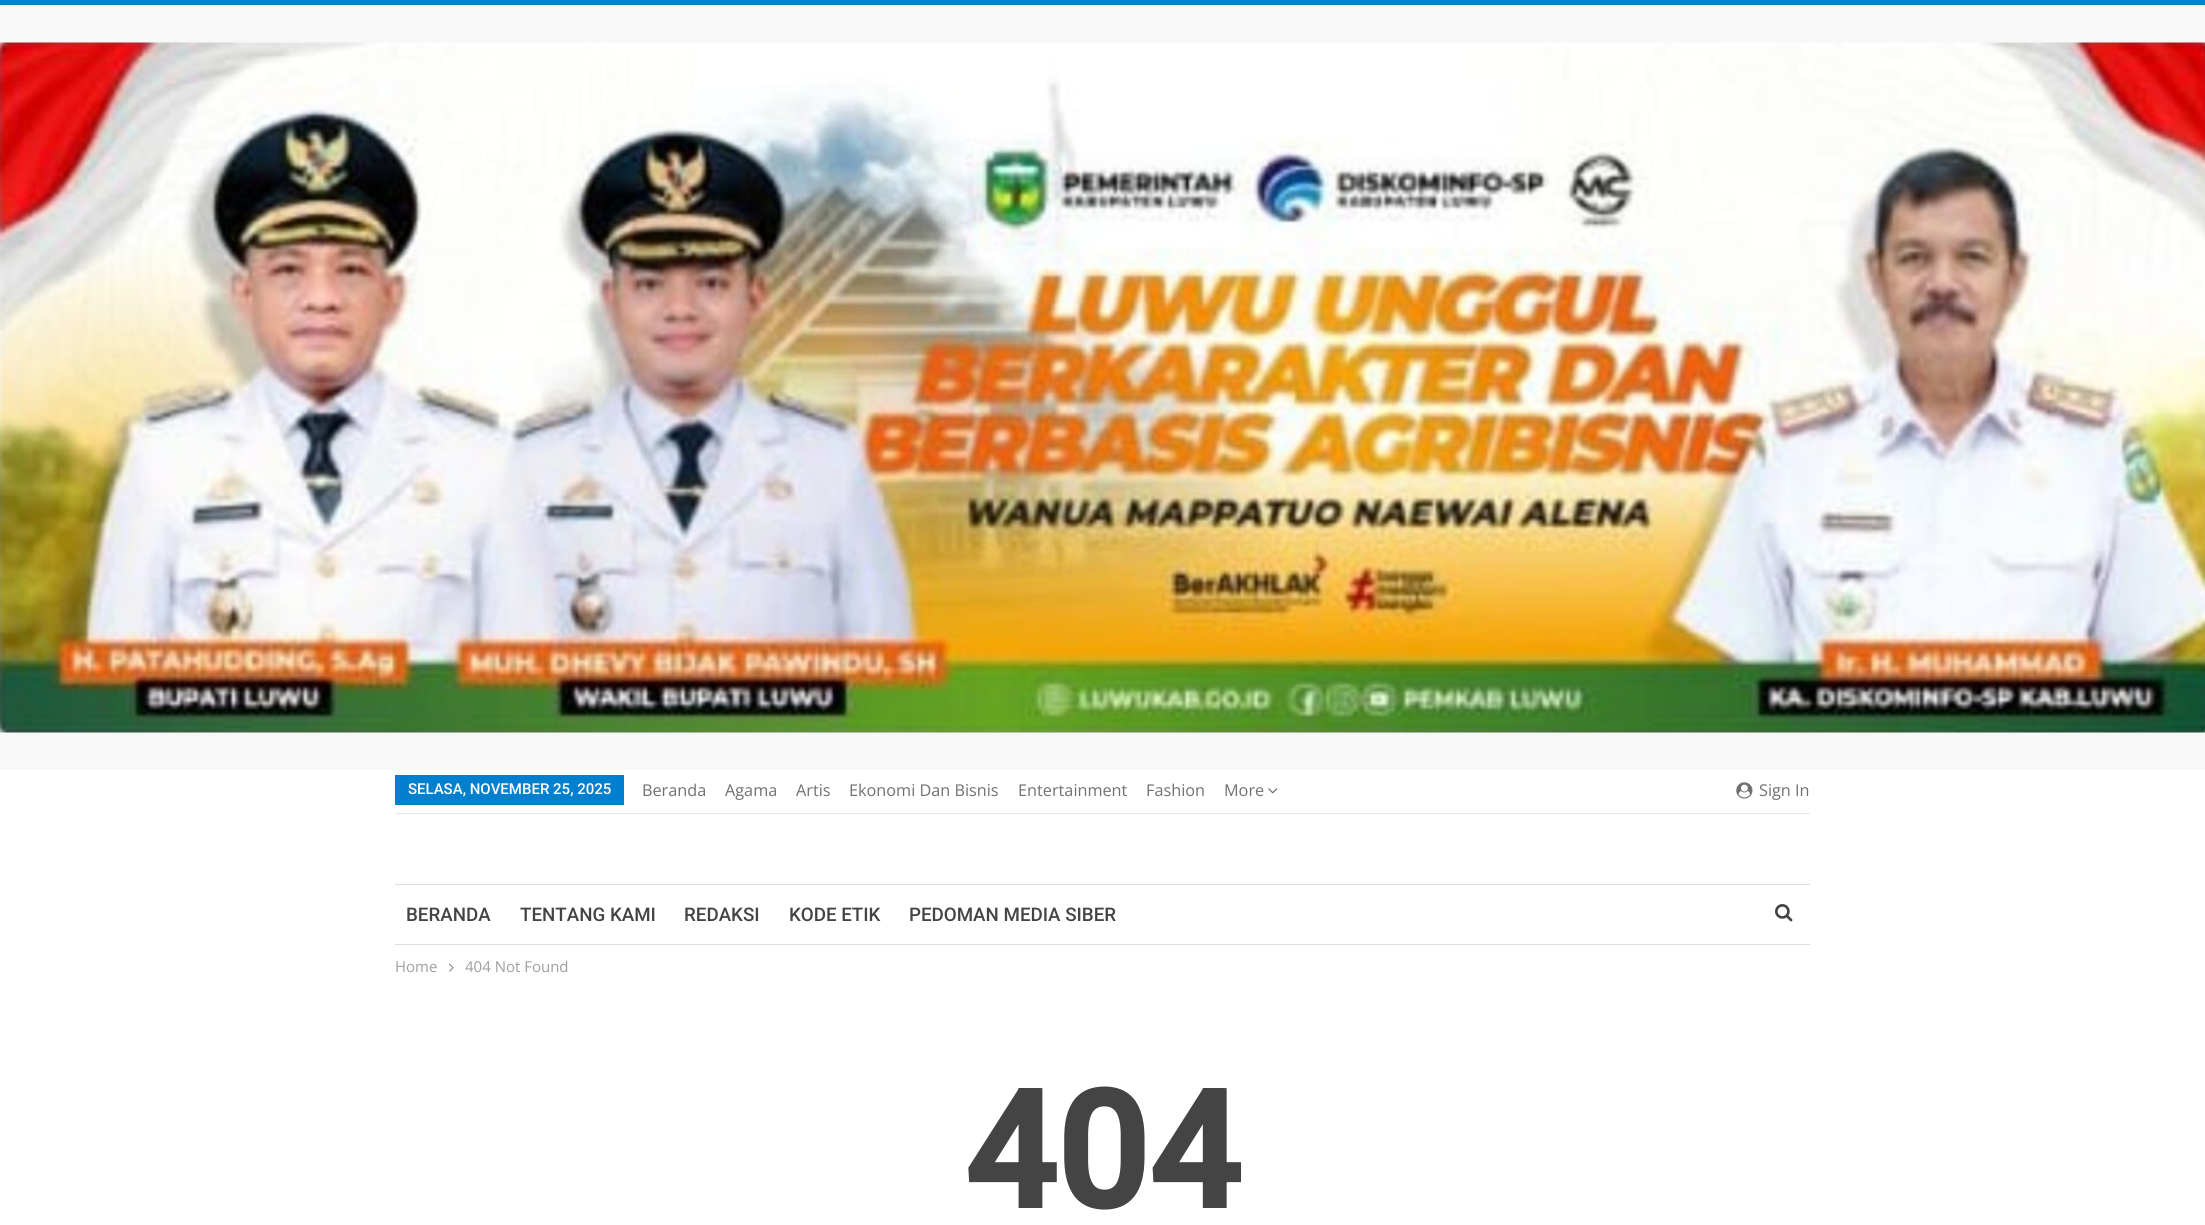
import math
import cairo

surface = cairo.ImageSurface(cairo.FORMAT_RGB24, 2205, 1225)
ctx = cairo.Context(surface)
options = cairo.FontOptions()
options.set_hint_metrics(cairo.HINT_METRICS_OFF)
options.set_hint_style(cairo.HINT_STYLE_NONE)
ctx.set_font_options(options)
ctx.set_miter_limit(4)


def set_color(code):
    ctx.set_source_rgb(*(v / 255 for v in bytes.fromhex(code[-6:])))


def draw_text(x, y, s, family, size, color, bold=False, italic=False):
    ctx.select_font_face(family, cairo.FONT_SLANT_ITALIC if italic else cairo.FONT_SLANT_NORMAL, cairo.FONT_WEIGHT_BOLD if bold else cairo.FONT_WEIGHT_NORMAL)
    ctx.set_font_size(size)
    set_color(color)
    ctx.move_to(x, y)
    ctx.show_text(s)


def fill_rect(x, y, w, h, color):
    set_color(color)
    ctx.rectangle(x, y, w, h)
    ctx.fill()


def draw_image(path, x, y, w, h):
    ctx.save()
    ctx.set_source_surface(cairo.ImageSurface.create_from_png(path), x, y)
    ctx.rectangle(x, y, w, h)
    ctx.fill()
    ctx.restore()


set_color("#ffffff")
ctx.paint()
fill_rect(0, 0, 2205, 5, "#0080ce")
fill_rect(0, 5, 2205, 765, "#f8f8f8")
draw_image("assets/img1.png", 0, 42, 2205, 691)
fill_rect(395, 813, 1415, 1, "#e6e6e6")
fill_rect(395, 775, 229, 30, "#0080ce")
draw_text(408, 794, "SELASA, NOVEMBER 25, 2025", "Roboto Medium", 15, "#ffffff")
draw_text(642, 796, "Beranda", "Open Sans", 16.25, "#707070")
draw_text(725, 796, "Agama", "Open Sans", 16.25, "#707070")
draw_text(796, 796, "Artis", "Open Sans", 16.25, "#707070")
draw_text(849, 796, "Ekonomi Dan Bisnis", "Open Sans", 16.25, "#707070")
draw_text(1018, 796, "Entertainment", "Open Sans", 16.25, "#707070")
draw_text(1146, 796, "Fashion", "Open Sans", 16.25, "#707070")
draw_text(1224, 796, "More", "Open Sans", 16.25, "#707070")
draw_image("assets/img2.png", 1268, 788, 10, 6)
draw_image("assets/img3.png", 1736, 782, 17, 17)
draw_text(1759, 796, "Sign In", "Open Sans", 16.25, "#707070")
fill_rect(395, 884, 1415, 1, "#dedede")
fill_rect(395, 944, 1415, 1, "#dedede")
draw_text(406, 921, "BERANDA", "Roboto Medium", 18.75, "#444444")
draw_text(520, 921, "TENTANG KAMI", "Roboto Medium", 18.75, "#444444")
draw_text(684, 921, "REDAKSI", "Roboto Medium", 18.75, "#444444")
draw_text(789, 921, "KODE ETIK", "Roboto Medium", 18.75, "#444444")
draw_text(909, 921, "PEDOMAN MEDIA SIBER", "Roboto Medium", 18.75, "#444444")
draw_image("assets/img4.png", 1775, 904, 18, 18)
draw_text(395, 972, "Home", "Open Sans", 15, "#9e9e9e")
draw_image("assets/img5.png", 448, 963, 6, 9)
draw_text(465, 972, "404 Not Found", "Open Sans", 15, "#9e9e9e")
draw_text(964, 1208, "404", "Roboto", 162, "#444444", bold=True)
surface.write_to_png("output.png")
